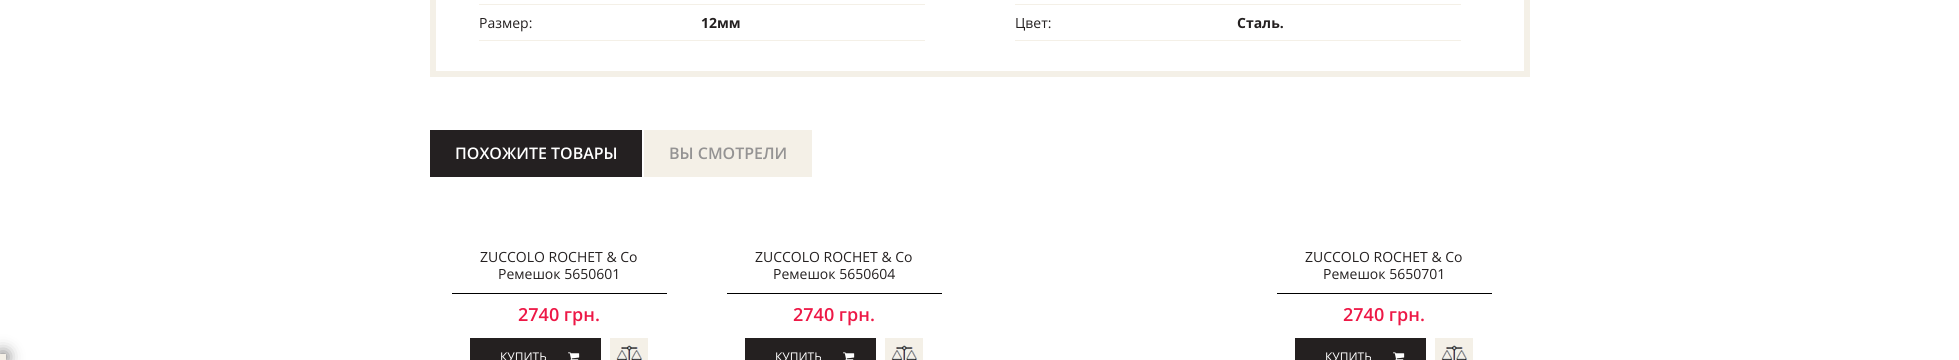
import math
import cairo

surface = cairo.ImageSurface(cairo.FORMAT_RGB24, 1959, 360)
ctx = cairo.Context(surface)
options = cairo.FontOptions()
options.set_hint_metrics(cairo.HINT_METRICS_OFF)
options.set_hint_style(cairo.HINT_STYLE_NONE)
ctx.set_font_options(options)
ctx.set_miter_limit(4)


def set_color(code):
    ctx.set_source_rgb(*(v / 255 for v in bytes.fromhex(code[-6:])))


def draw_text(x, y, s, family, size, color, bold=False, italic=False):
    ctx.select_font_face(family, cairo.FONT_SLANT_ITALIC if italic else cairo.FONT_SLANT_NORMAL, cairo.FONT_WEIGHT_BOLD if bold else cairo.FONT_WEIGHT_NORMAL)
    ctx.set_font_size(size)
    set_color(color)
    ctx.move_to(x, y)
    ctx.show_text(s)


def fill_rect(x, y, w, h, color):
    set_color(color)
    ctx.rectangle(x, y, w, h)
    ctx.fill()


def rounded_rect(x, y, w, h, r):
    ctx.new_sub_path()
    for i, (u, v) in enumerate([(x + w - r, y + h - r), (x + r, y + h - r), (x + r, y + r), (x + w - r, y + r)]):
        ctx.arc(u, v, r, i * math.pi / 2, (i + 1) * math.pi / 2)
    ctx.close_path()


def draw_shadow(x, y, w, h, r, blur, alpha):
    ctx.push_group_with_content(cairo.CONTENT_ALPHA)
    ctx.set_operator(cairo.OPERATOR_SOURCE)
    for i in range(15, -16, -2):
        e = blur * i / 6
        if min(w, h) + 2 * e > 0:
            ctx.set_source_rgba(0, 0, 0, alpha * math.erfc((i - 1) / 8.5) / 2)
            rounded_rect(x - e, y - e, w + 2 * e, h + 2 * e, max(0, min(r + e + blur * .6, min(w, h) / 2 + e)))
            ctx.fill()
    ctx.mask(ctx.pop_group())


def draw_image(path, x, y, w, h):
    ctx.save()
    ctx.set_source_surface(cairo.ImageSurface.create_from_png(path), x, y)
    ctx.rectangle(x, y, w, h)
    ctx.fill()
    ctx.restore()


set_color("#ffffff")
ctx.paint()
set_color("#323232")
draw_shadow(0, 354, 6, 6, 0, 8, 0.75)
fill_rect(0, 354, 6, 6, "#f4f0e7")
ctx.rectangle(433, -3, 1094, 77)
ctx.set_line_width(6)
ctx.stroke()
fill_rect(479, 4, 446, 1, "#f4f0e7")
fill_rect(1015, 4, 446, 1, "#f4f0e7")
fill_rect(479, 40, 446, 1, "#f4f0e7")
draw_text(479, 28, "Размер:", "Open Sans", 14, "#242020")
draw_text(701, 28, "12мм", "Open Sans", 14, "#242020", bold=True)
fill_rect(1015, 40, 446, 1, "#f4f0e7")
draw_text(1015, 28, "Цвет:", "Open Sans", 14, "#242020")
draw_text(1237, 28, "Сталь.", "Open Sans", 14, "#242020", bold=True)
fill_rect(430, 130, 212, 47, "#242021")
draw_text(455, 159, "ПОХОЖИТЕ ТОВАРЫ", "Open Sans SemiBold", 16, "#ffffff")
fill_rect(644, 130, 168, 47, "#f4f0e7")
draw_text(669, 159, "ВЫ СМОТРЕЛИ", "Open Sans SemiBold", 16, "#949393")
draw_text(480, 262, "ZUCCOLO ROCHET & Cо", "Open Sans", 14, "#242020")
draw_text(498, 279, "Ремешок 5650601", "Open Sans", 14, "#242020")
fill_rect(452, 293, 215, 1, "#000000")
draw_text(518, 321, "2740 грн.", "Open Sans SemiBold", 18, "#ed1846")
fill_rect(470, 338, 131, 22, "#242020")
draw_text(500, 361, "КУПИТЬ", "Open Sans", 12, "#ffffff")
draw_image("assets/img1.png", 568, 352, 12, 8)
draw_image("assets/img2.png", 610, 338, 38, 22)
draw_text(755, 262, "ZUCCOLO ROCHET & Cо", "Open Sans", 14, "#242020")
draw_text(773, 279, "Ремешок 5650604", "Open Sans", 14, "#242020")
fill_rect(727, 293, 215, 1, "#000000")
draw_text(793, 321, "2740 грн.", "Open Sans SemiBold", 18, "#ed1846")
fill_rect(745, 338, 131, 22, "#242020")
draw_text(775, 361, "КУПИТЬ", "Open Sans", 12, "#ffffff")
draw_image("assets/img1.png", 843, 352, 12, 8)
draw_image("assets/img2.png", 885, 338, 38, 22)
draw_text(1305, 262, "ZUCCOLO ROCHET & Cо", "Open Sans", 14, "#242020")
draw_text(1323, 279, "Ремешок 5650701", "Open Sans", 14, "#242020")
fill_rect(1277, 293, 215, 1, "#000000")
draw_text(1343, 321, "2740 грн.", "Open Sans SemiBold", 18, "#ed1846")
fill_rect(1295, 338, 131, 22, "#242020")
draw_text(1325, 361, "КУПИТЬ", "Open Sans", 12, "#ffffff")
draw_image("assets/img1.png", 1393, 352, 12, 8)
draw_image("assets/img2.png", 1435, 338, 38, 22)
surface.write_to_png("output.png")
